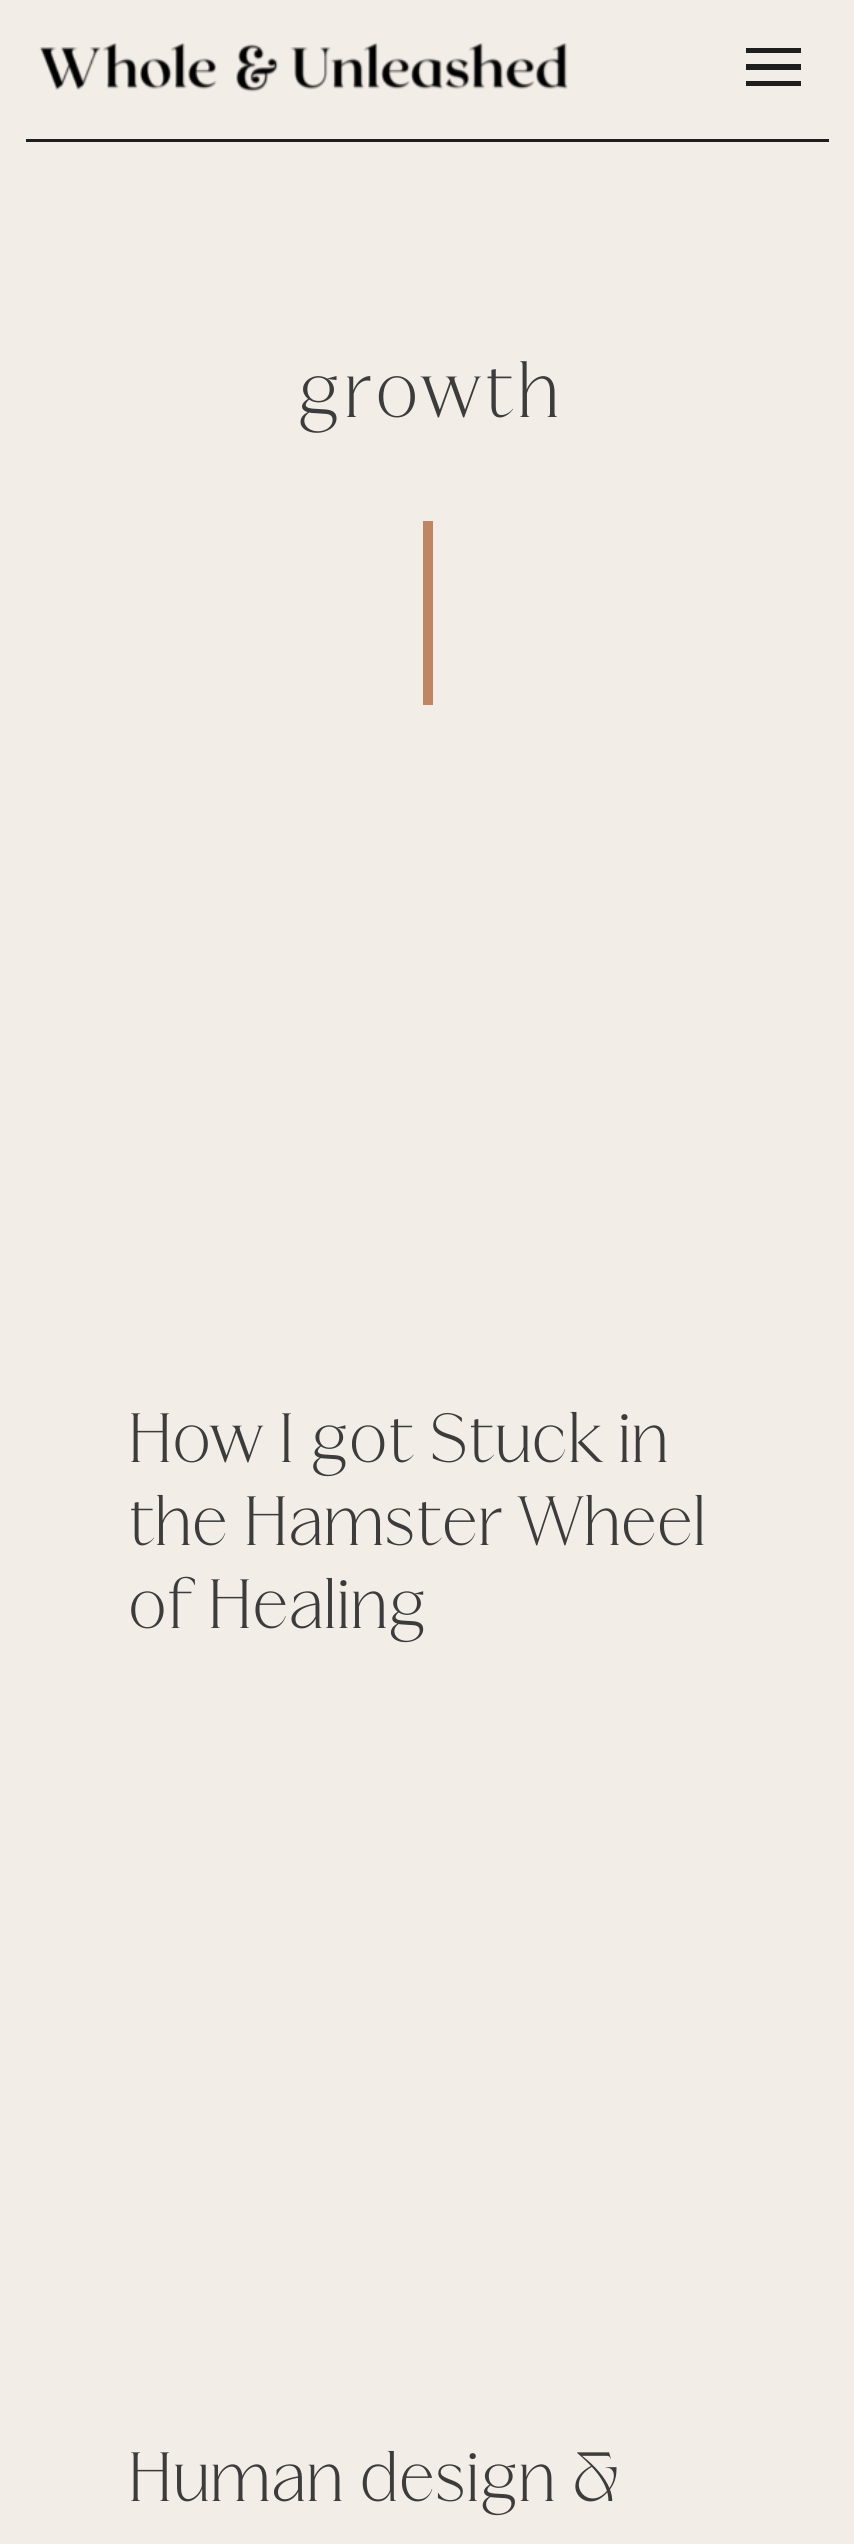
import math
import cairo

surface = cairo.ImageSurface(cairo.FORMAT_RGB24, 854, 2544)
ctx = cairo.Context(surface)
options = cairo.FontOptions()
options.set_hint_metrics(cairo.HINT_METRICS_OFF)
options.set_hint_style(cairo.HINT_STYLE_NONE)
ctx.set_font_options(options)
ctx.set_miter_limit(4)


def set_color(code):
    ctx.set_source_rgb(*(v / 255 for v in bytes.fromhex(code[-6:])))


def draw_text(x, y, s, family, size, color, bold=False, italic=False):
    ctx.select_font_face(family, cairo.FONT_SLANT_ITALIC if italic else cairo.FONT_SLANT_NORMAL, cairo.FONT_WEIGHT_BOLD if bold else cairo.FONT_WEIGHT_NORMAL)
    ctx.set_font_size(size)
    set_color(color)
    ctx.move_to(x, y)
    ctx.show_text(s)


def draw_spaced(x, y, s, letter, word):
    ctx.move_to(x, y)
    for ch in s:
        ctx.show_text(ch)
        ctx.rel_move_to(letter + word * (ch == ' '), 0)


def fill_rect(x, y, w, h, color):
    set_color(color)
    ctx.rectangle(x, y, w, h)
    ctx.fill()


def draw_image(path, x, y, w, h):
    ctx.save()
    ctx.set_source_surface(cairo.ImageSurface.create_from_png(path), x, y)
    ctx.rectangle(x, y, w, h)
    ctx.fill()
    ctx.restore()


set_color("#f3ede8")
ctx.paint()
draw_image("assets/img1.png", 39, 43, 529, 49)
set_color("#1e1e1e")
ctx.new_path()
ctx.move_to(746, 64)
ctx.line_to(801, 64)
ctx.line_to(801, 70)
ctx.line_to(746, 70)
ctx.close_path()
ctx.move_to(746, 48)
ctx.line_to(801, 48)
ctx.line_to(801, 53)
ctx.line_to(746, 53)
ctx.close_path()
ctx.move_to(746, 81)
ctx.line_to(801, 81)
ctx.line_to(801, 86)
ctx.line_to(746, 86)
ctx.close_path()
ctx.fill()
fill_rect(26, 139, 803, 3, "#1e1e1e")
ctx.select_font_face("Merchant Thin")
ctx.set_font_size(77.5)
set_color("#3c3c3c")
draw_spaced(297, 417, "growth", 4, 0)
fill_rect(423, 521, 10, 184, "#c08563")
draw_text(128, 1462, "How I got Stuck in", "Merchant Thin", 69.5, "#3c3c3c")
draw_text(128, 1545, "the Hamster Wheel", "Merchant Thin", 69.5, "#3c3c3c")
draw_text(128, 1628, "of Healing", "Merchant Thin", 69.5, "#3c3c3c")
draw_text(128, 2501, "Human design &", "Merchant Thin", 69.5, "#3c3c3c")
surface.write_to_png("output.png")
